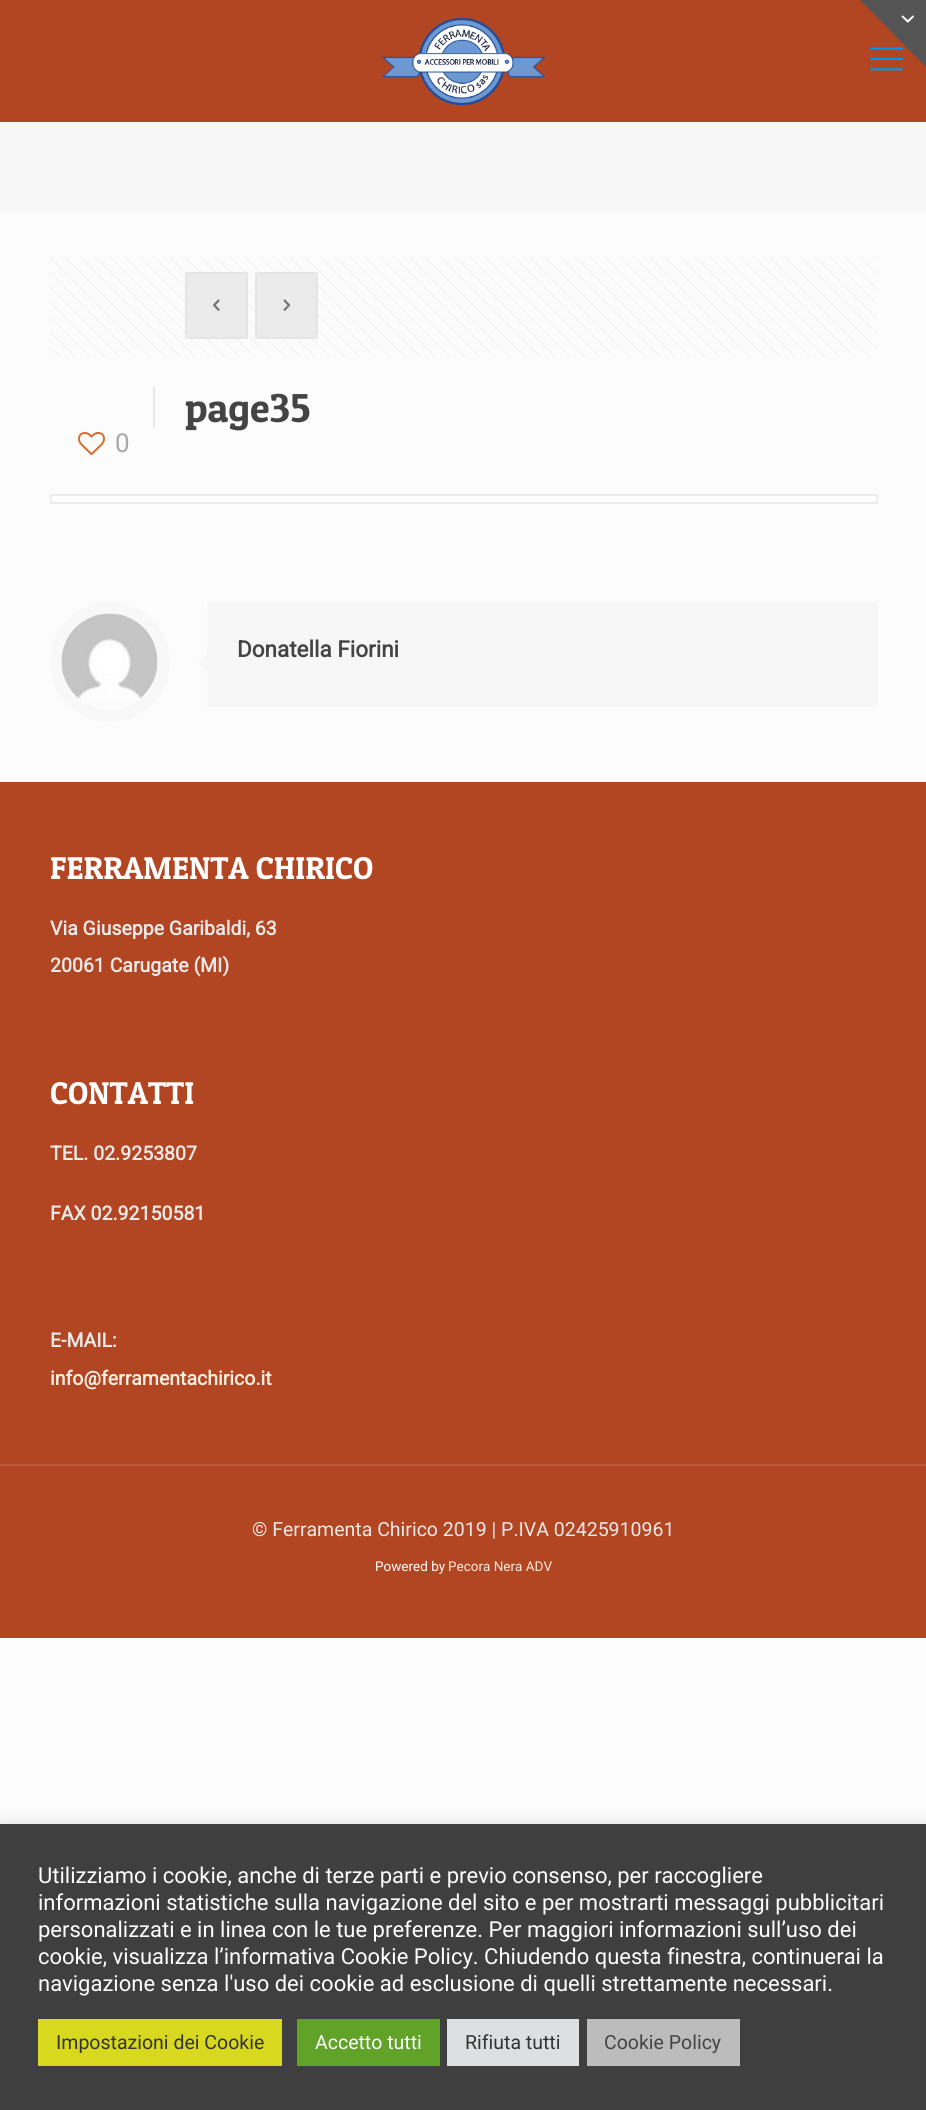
import math
import cairo

surface = cairo.ImageSurface(cairo.FORMAT_RGB24, 926, 2110)
ctx = cairo.Context(surface)
options = cairo.FontOptions()
options.set_hint_metrics(cairo.HINT_METRICS_OFF)
options.set_hint_style(cairo.HINT_STYLE_NONE)
ctx.set_font_options(options)
ctx.set_miter_limit(4)


def set_color(code):
    ctx.set_source_rgb(*(v / 255 for v in bytes.fromhex(code[-6:])))


def draw_text(x, y, s, family, size, color, bold=False, italic=False):
    ctx.select_font_face(family, cairo.FONT_SLANT_ITALIC if italic else cairo.FONT_SLANT_NORMAL, cairo.FONT_WEIGHT_BOLD if bold else cairo.FONT_WEIGHT_NORMAL)
    ctx.set_font_size(size)
    set_color(color)
    ctx.move_to(x, y)
    ctx.show_text(s)


def fill_rect(x, y, w, h, color):
    set_color(color)
    ctx.rectangle(x, y, w, h)
    ctx.fill()


def rounded_rect(x, y, w, h, r):
    ctx.new_sub_path()
    for i, (u, v) in enumerate([(x + w - r, y + h - r), (x + r, y + h - r), (x + r, y + r), (x + w - r, y + r)]):
        ctx.arc(u, v, r, i * math.pi / 2, (i + 1) * math.pi / 2)
    ctx.close_path()


def draw_shadow(x, y, w, h, r, blur, alpha):
    ctx.push_group_with_content(cairo.CONTENT_ALPHA)
    ctx.set_operator(cairo.OPERATOR_SOURCE)
    for i in range(15, -16, -2):
        e = blur * i / 6
        if min(w, h) + 2 * e > 0:
            ctx.set_source_rgba(0, 0, 0, alpha * math.erfc((i - 1) / 8.5) / 2)
            rounded_rect(x - e, y - e, w + 2 * e, h + 2 * e, max(0, min(r + e + blur * .6, min(w, h) / 2 + e)))
            ctx.fill()
    ctx.mask(ctx.pop_group())


def draw_image(path, x, y, w, h):
    ctx.save()
    ctx.set_source_surface(cairo.ImageSurface.create_from_png(path), x, y)
    ctx.rectangle(x, y, w, h)
    ctx.fill()
    ctx.restore()


set_color("#fcfcfc")
ctx.paint()
fill_rect(0, 0, 926, 122, "#b24622")
draw_image("assets/img3.png", 870, 47, 33, 24)
set_color("#545454")
ctx.new_path()
ctx.move_to(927, 0)
ctx.line_to(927, 68)
ctx.line_to(860, 0)
ctx.close_path()
ctx.fill()
draw_image("assets/img1.png", 901, 15, 13, 8)
draw_image("assets/img2.png", 382, 18, 164, 87)
fill_rect(0, 122, 926, 90, "#f7f7f7")
draw_image("assets/img4.png", 50, 257, 827, 100)
rounded_rect(185, 272, 63, 67, 8)
ctx.fill()
ctx.rectangle(186, 273, 61, 65)
ctx.set_source_rgba(0, 0, 0, 0.03)
ctx.stroke()
draw_image("assets/img5.png", 213, 299, 7, 12)
ctx.set_source_rgba(0, 0, 0, 0.05)
ctx.rectangle(185, 272, 63, 67)
ctx.fill()
set_color("#f7f7f7")
rounded_rect(255, 272, 63, 67, 8)
ctx.fill()
ctx.rectangle(256, 273, 61, 65)
ctx.set_source_rgba(0, 0, 0, 0.03)
ctx.stroke()
draw_image("assets/img6.png", 283, 299, 8, 12)
ctx.set_source_rgba(0, 0, 0, 0.05)
ctx.rectangle(255, 272, 63, 67)
ctx.fill()
fill_rect(153, 387, 2, 41, "#e8e8e8")
draw_text(185, 422, "page35", "Patua One", 40.5, "#444444")
draw_image("assets/img7.png", 78, 432, 27, 24)
draw_text(115, 452, "0", "Roboto", 26, "#a8a8a8")
set_color("#ffffff")
ctx.rectangle(51, 495, 826, 8)
ctx.fill_preserve()
set_color("#ebebeb")
ctx.stroke()
ctx.arc(110, 662, 54, 0, 2 * math.pi)
set_color("#f8f8f8")
ctx.set_line_width(12)
ctx.stroke()
draw_image("assets/img8.png", 61, 613, 97, 86)
fill_rect(207, 602, 671, 105, "#f7f7f7")
draw_text(237, 657, "Donatella Fiorini", "Roboto", 22.5, "#444444", bold=True)
set_color("#f7f7f7")
ctx.new_path()
ctx.move_to(207, 654)
ctx.line_to(207, 672)
ctx.line_to(198, 663)
ctx.close_path()
ctx.fill()
fill_rect(0, 782, 926, 856, "#b24622")
draw_text(50, 879, "FERRAMENTA CHIRICO", "Patua One", 31.5, "#ffffff")
draw_text(50, 935, "Via Giuseppe Garibaldi, 63", "Roboto", 19.5, "#eaeaea", bold=True)
draw_text(50, 972, "20061 Carugate (MI)", "Roboto", 19.5, "#eaeaea", bold=True)
draw_text(50, 1104, "CONTATTI", "Patua One", 31.5, "#ffffff")
draw_text(50, 1160, "TEL. 02.9253807", "Roboto", 19.5, "#eaeaea", bold=True)
draw_text(50, 1220, "FAX 02.92150581", "Roboto", 19.5, "#eaeaea", bold=True)
draw_text(50, 1347, "E-MAIL:", "Roboto", 19.5, "#eaeaea", bold=True)
draw_text(50, 1385, "info@ferramentachirico.it", "Roboto", 19.5, "#f9ede1", bold=True)
fill_rect(0, 1464, 926, 2, "#ba5938")
draw_text(252, 1536, "© Ferramenta Chirico 2019 | P.IVA 02425910961", "Roboto", 19.5, "#eaeaea")
draw_text(375, 1571, "Powered by", "Roboto", 13.5, "#ffffff")
draw_text(448, 1571, "Pecora Nera ADV", "Roboto", 13.5, "#f9ede1")
set_color("#acabab")
draw_shadow(0, 1823, 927, 286, 0, 7.5, 0.3)
fill_rect(0, 1824, 926, 286, "#3f3f3f")
draw_text(38, 1883, "Utilizziamo i cookie, anche di terze parti e previo consenso, per raccogliere", "Roboto", 22, "#ffffff")
draw_text(38, 1910, "informazioni statistiche sulla navigazione del sito e per mostrarti messaggi pubblicitari", "Roboto", 22, "#ffffff")
draw_text(38, 1937, "personalizzati e in linea con le tue preferenze. Per maggiori informazioni sull’uso dei", "Roboto", 22, "#ffffff")
draw_text(38, 1964, "cookie, visualizza l’informativa Cookie Policy. Chiudendo questa finestra, continuerai la", "Roboto", 22, "#ffffff")
draw_text(38, 1991, "navigazione senza l'uso dei cookie ad esclusione di quelli strettamente necessari.", "Roboto", 22, "#ffffff")
fill_rect(38, 2019, 244, 47, "#d8d81e")
draw_text(56, 2049, "Impostazioni dei Cookie", "Roboto", 19.5, "#333333")
fill_rect(297, 2019, 143, 47, "#61a229")
draw_text(315, 2049, "Accetto tutti", "Roboto", 19.5, "#ffffff")
fill_rect(447, 2019, 132, 47, "#dedfe0")
draw_text(465, 2049, "Rifiuta tutti", "Roboto", 19.5, "#333333")
fill_rect(587, 2019, 153, 47, "#bcbcbc")
draw_text(604, 2049, "Cookie Policy", "Roboto", 19.5, "#444444")
surface.write_to_png("output.png")
